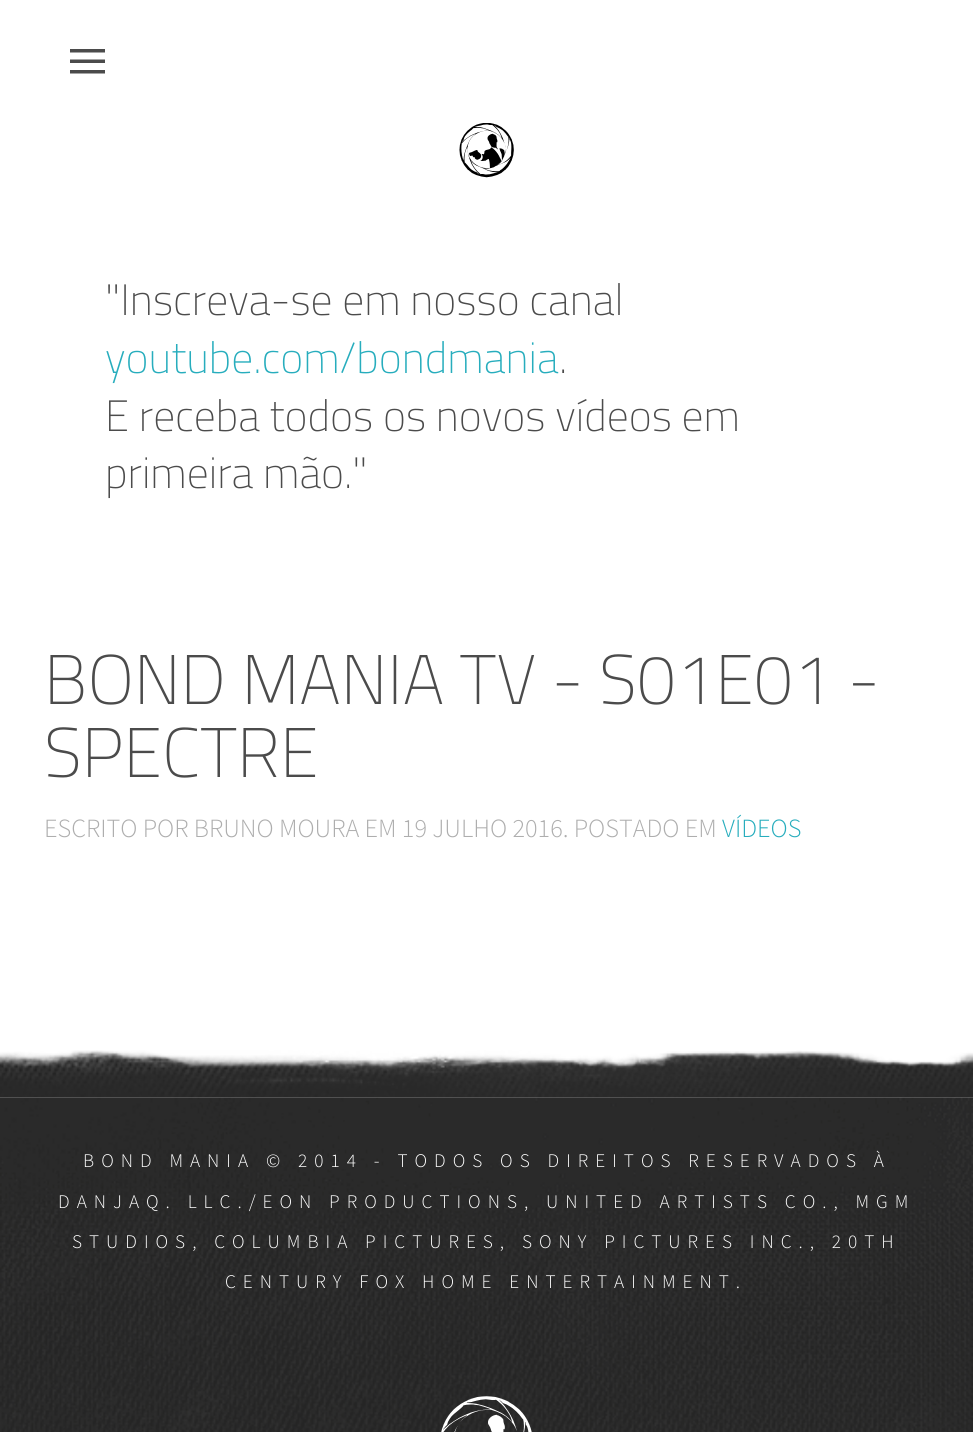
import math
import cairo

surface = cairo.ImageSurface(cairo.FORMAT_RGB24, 973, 1432)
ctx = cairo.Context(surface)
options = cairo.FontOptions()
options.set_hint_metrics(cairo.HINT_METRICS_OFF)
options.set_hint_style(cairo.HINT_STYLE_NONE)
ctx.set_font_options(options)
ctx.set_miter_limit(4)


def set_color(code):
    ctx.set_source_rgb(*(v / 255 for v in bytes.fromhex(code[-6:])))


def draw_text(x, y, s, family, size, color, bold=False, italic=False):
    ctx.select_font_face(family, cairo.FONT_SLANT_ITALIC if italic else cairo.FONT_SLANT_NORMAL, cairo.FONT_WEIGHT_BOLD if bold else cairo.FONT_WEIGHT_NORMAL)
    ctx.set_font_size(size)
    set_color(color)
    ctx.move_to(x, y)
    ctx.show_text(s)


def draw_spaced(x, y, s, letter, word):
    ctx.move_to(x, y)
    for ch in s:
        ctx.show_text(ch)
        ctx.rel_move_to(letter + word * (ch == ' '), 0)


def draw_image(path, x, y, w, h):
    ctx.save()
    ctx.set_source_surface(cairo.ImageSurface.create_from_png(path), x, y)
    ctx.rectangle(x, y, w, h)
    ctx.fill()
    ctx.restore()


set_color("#ffffff")
ctx.paint()
set_color("#4b4b4b")
ctx.new_path()
ctx.move_to(70, 49)
ctx.line_to(105, 49)
ctx.line_to(105, 52.5)
ctx.line_to(70, 52.5)
ctx.close_path()
ctx.move_to(70, 59.5)
ctx.line_to(105, 59.5)
ctx.line_to(105, 63)
ctx.line_to(70, 63)
ctx.close_path()
ctx.move_to(70, 70)
ctx.line_to(105, 70)
ctx.line_to(105, 73.5)
ctx.line_to(70, 73.5)
ctx.close_path()
ctx.fill()
draw_image("assets/img1.png", 459, 123, 55, 55)
draw_text(105, 315, "\"Inscreva-se em nosso canal", "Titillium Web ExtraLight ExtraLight", 43.75, "#4b4b4b")
draw_text(105, 373, "youtube.com/bondmania", "Titillium Web ExtraLight ExtraLight", 43.75, "#27adbd")
draw_text(559, 373, ".", "Titillium Web ExtraLight ExtraLight", 43.75, "#4b4b4b")
draw_text(105, 431, "E receba todos os novos vídeos em", "Titillium Web ExtraLight ExtraLight", 43.75, "#4b4b4b")
draw_text(105, 488, "primeira mão.\"", "Titillium Web ExtraLight ExtraLight", 43.75, "#4b4b4b")
draw_text(44, 704, "BOND MANIA TV - S01E01 -", "Titillium Web ExtraLight ExtraLight", 70, "#4b4b4b")
draw_text(44, 777, "SPECTRE", "Titillium Web ExtraLight ExtraLight", 70, "#4b4b4b")
draw_text(44, 837, "ESCRITO POR BRUNO MOURA EM 19 JULHO 2016. POSTADO EM", "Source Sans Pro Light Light", 26.25, "#aeaeae")
draw_text(722, 837, "VÍDEOS", "Source Sans Pro Light Light", 26.25, "#27adbd")
draw_image("assets/img2.png", 0, 1050, 973, 382)
ctx.set_font_size(19.25)
set_color("#ffffff")
draw_spaced(83, 1167, "BOND MANIA © 2014 - TODOS OS DIREITOS RESERVADOS À", 7, 0)
draw_spaced(58, 1208, "DANJAQ. LLC./EON PRODUCTIONS, UNITED ARTISTS CO., MGM", 7, 0)
draw_spaced(72, 1248, "STUDIOS, COLUMBIA PICTURES, SONY PICTURES INC., 20TH", 7, 0)
draw_spaced(225, 1288, "CENTURY FOX HOME ENTERTAINMENT.", 7, 0)
draw_image("assets/img3.png", 441, 1396, 91, 36)
surface.write_to_png("output.png")
